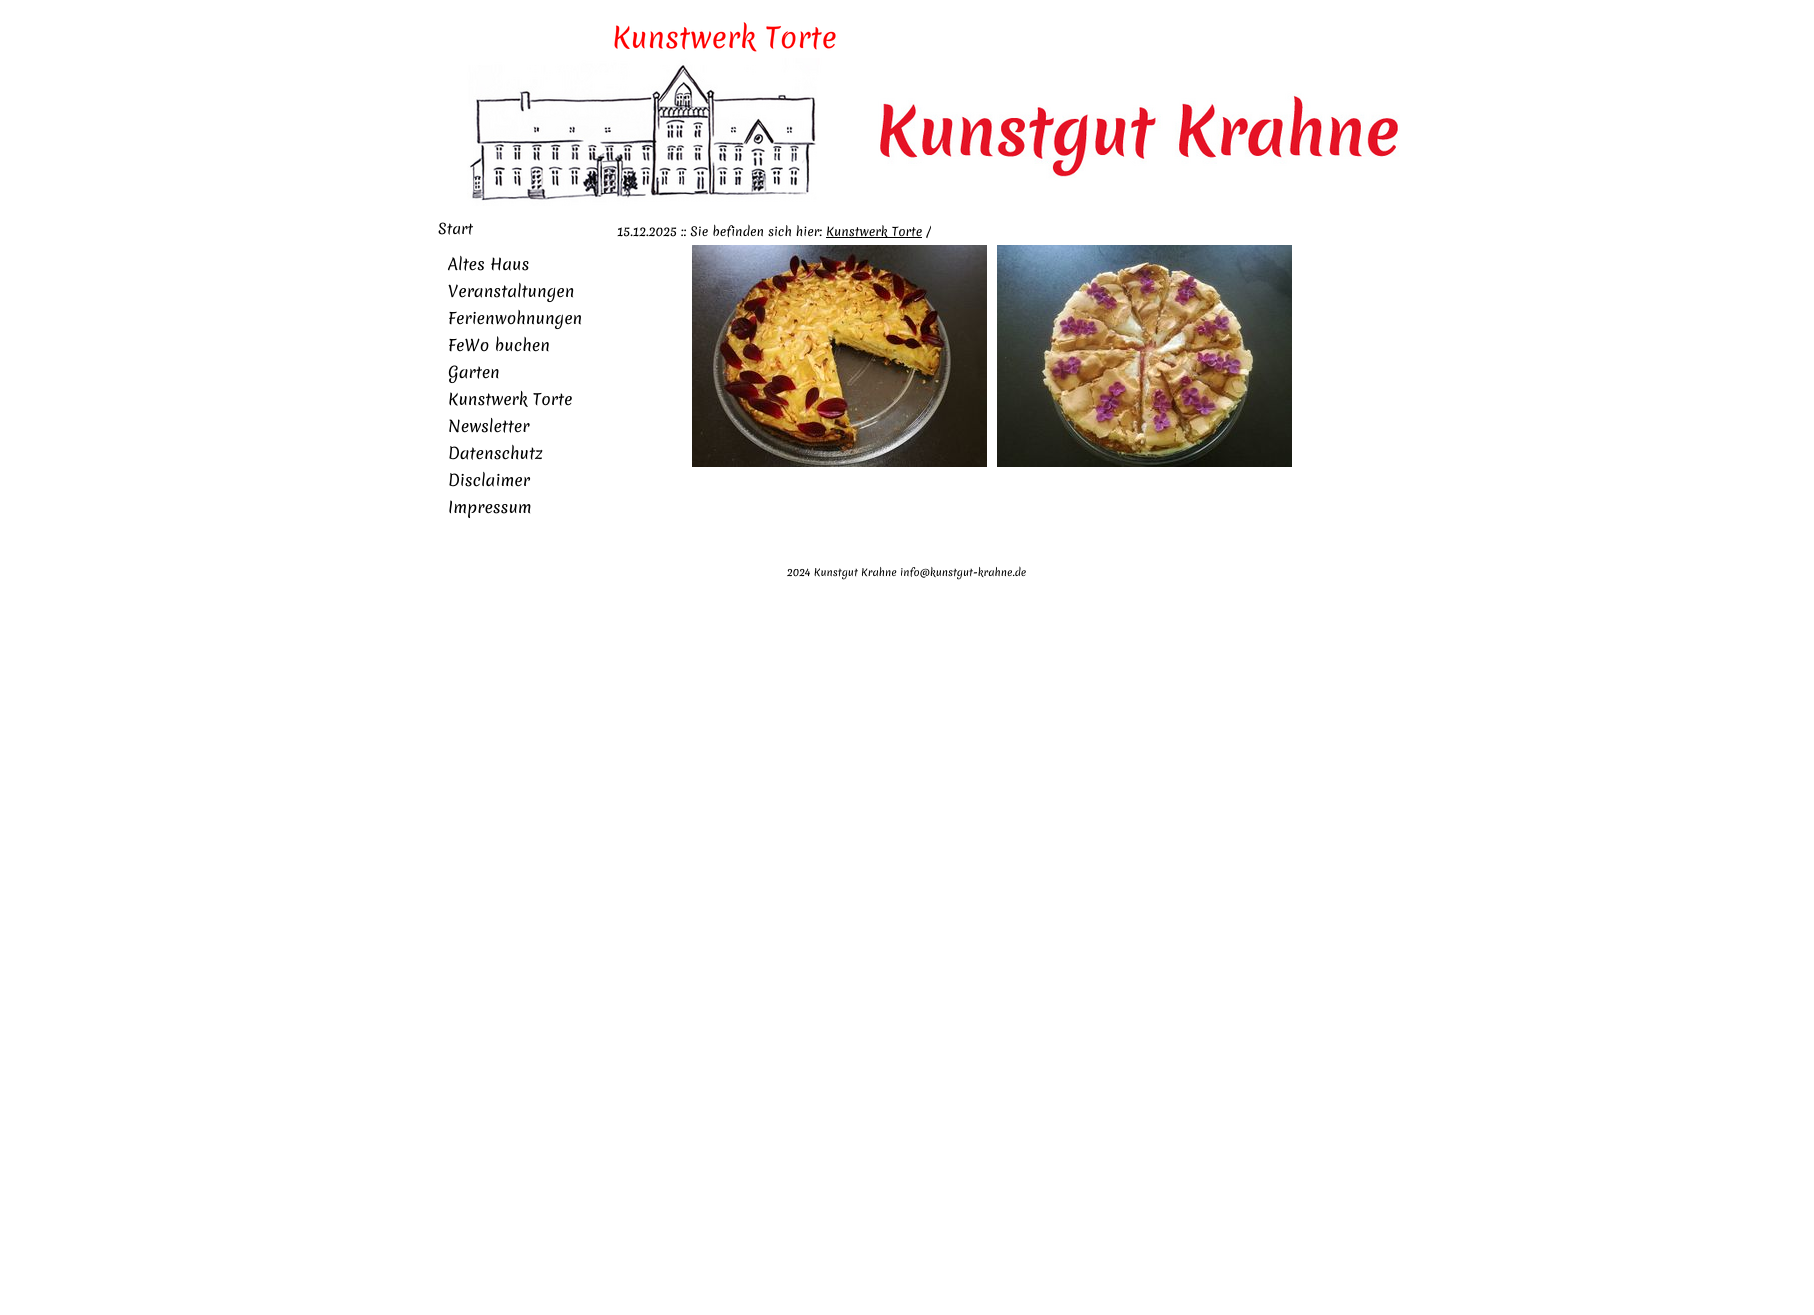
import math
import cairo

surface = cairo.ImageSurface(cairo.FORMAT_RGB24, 1814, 1315)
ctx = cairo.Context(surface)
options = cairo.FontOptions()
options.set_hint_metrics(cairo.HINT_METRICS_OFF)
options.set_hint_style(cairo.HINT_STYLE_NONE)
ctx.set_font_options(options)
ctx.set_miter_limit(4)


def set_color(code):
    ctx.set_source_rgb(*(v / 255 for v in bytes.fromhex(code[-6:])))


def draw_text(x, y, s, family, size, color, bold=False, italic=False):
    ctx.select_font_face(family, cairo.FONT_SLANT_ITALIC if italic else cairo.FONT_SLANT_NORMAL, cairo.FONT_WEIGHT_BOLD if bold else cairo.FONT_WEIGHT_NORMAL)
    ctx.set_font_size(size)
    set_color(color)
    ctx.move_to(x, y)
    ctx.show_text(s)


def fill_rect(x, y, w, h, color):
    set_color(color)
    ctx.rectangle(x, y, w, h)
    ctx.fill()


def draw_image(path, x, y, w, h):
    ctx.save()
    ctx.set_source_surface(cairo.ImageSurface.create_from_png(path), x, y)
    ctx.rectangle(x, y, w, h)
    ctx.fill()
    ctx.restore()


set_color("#ffffff")
ctx.paint()
draw_image("assets/img1.png", 467, 22, 933, 184)
draw_text(438, 234, "Start", "Merienda", 14, "#000000")
draw_text(448, 270, "Altes Haus", "Merienda", 15.5, "#000000")
draw_text(448, 297, "Veranstaltungen", "Merienda", 15.5, "#000000")
draw_text(448, 324, "Ferienwohnungen", "Merienda", 15.5, "#000000")
draw_text(448, 351, "FeWo buchen", "Merienda", 15.5, "#000000")
draw_text(448, 378, "Garten", "Merienda", 15.5, "#000000")
draw_text(448, 405, "Kunstwerk Torte", "Merienda", 15.5, "#000000")
draw_text(448, 432, "Newsletter", "Merienda", 15.5, "#000000")
draw_text(448, 459, "Datenschutz", "Merienda", 15.5, "#000000")
draw_text(448, 486, "Disclaimer", "Merienda", 15.5, "#000000")
draw_text(448, 513, "Impressum", "Merienda", 15.5, "#000000")
draw_text(617, 236, "15.12.2025 :: Sie befinden sich hier:", "Merienda", 12, "#000000")
fill_rect(826, 237, 96, 1, "#000000")
draw_text(826, 236, "Kunstwerk Torte /", "Merienda", 12, "#000000")
draw_image("assets/img2.png", 692, 245, 295, 222)
draw_image("assets/img3.png", 997, 245, 295, 222)
draw_text(787, 576, "2024 Kunstgut Krahne info@kunstgut-krahne.de", "Merienda", 10, "#000000")
surface.write_to_png("output.png")
